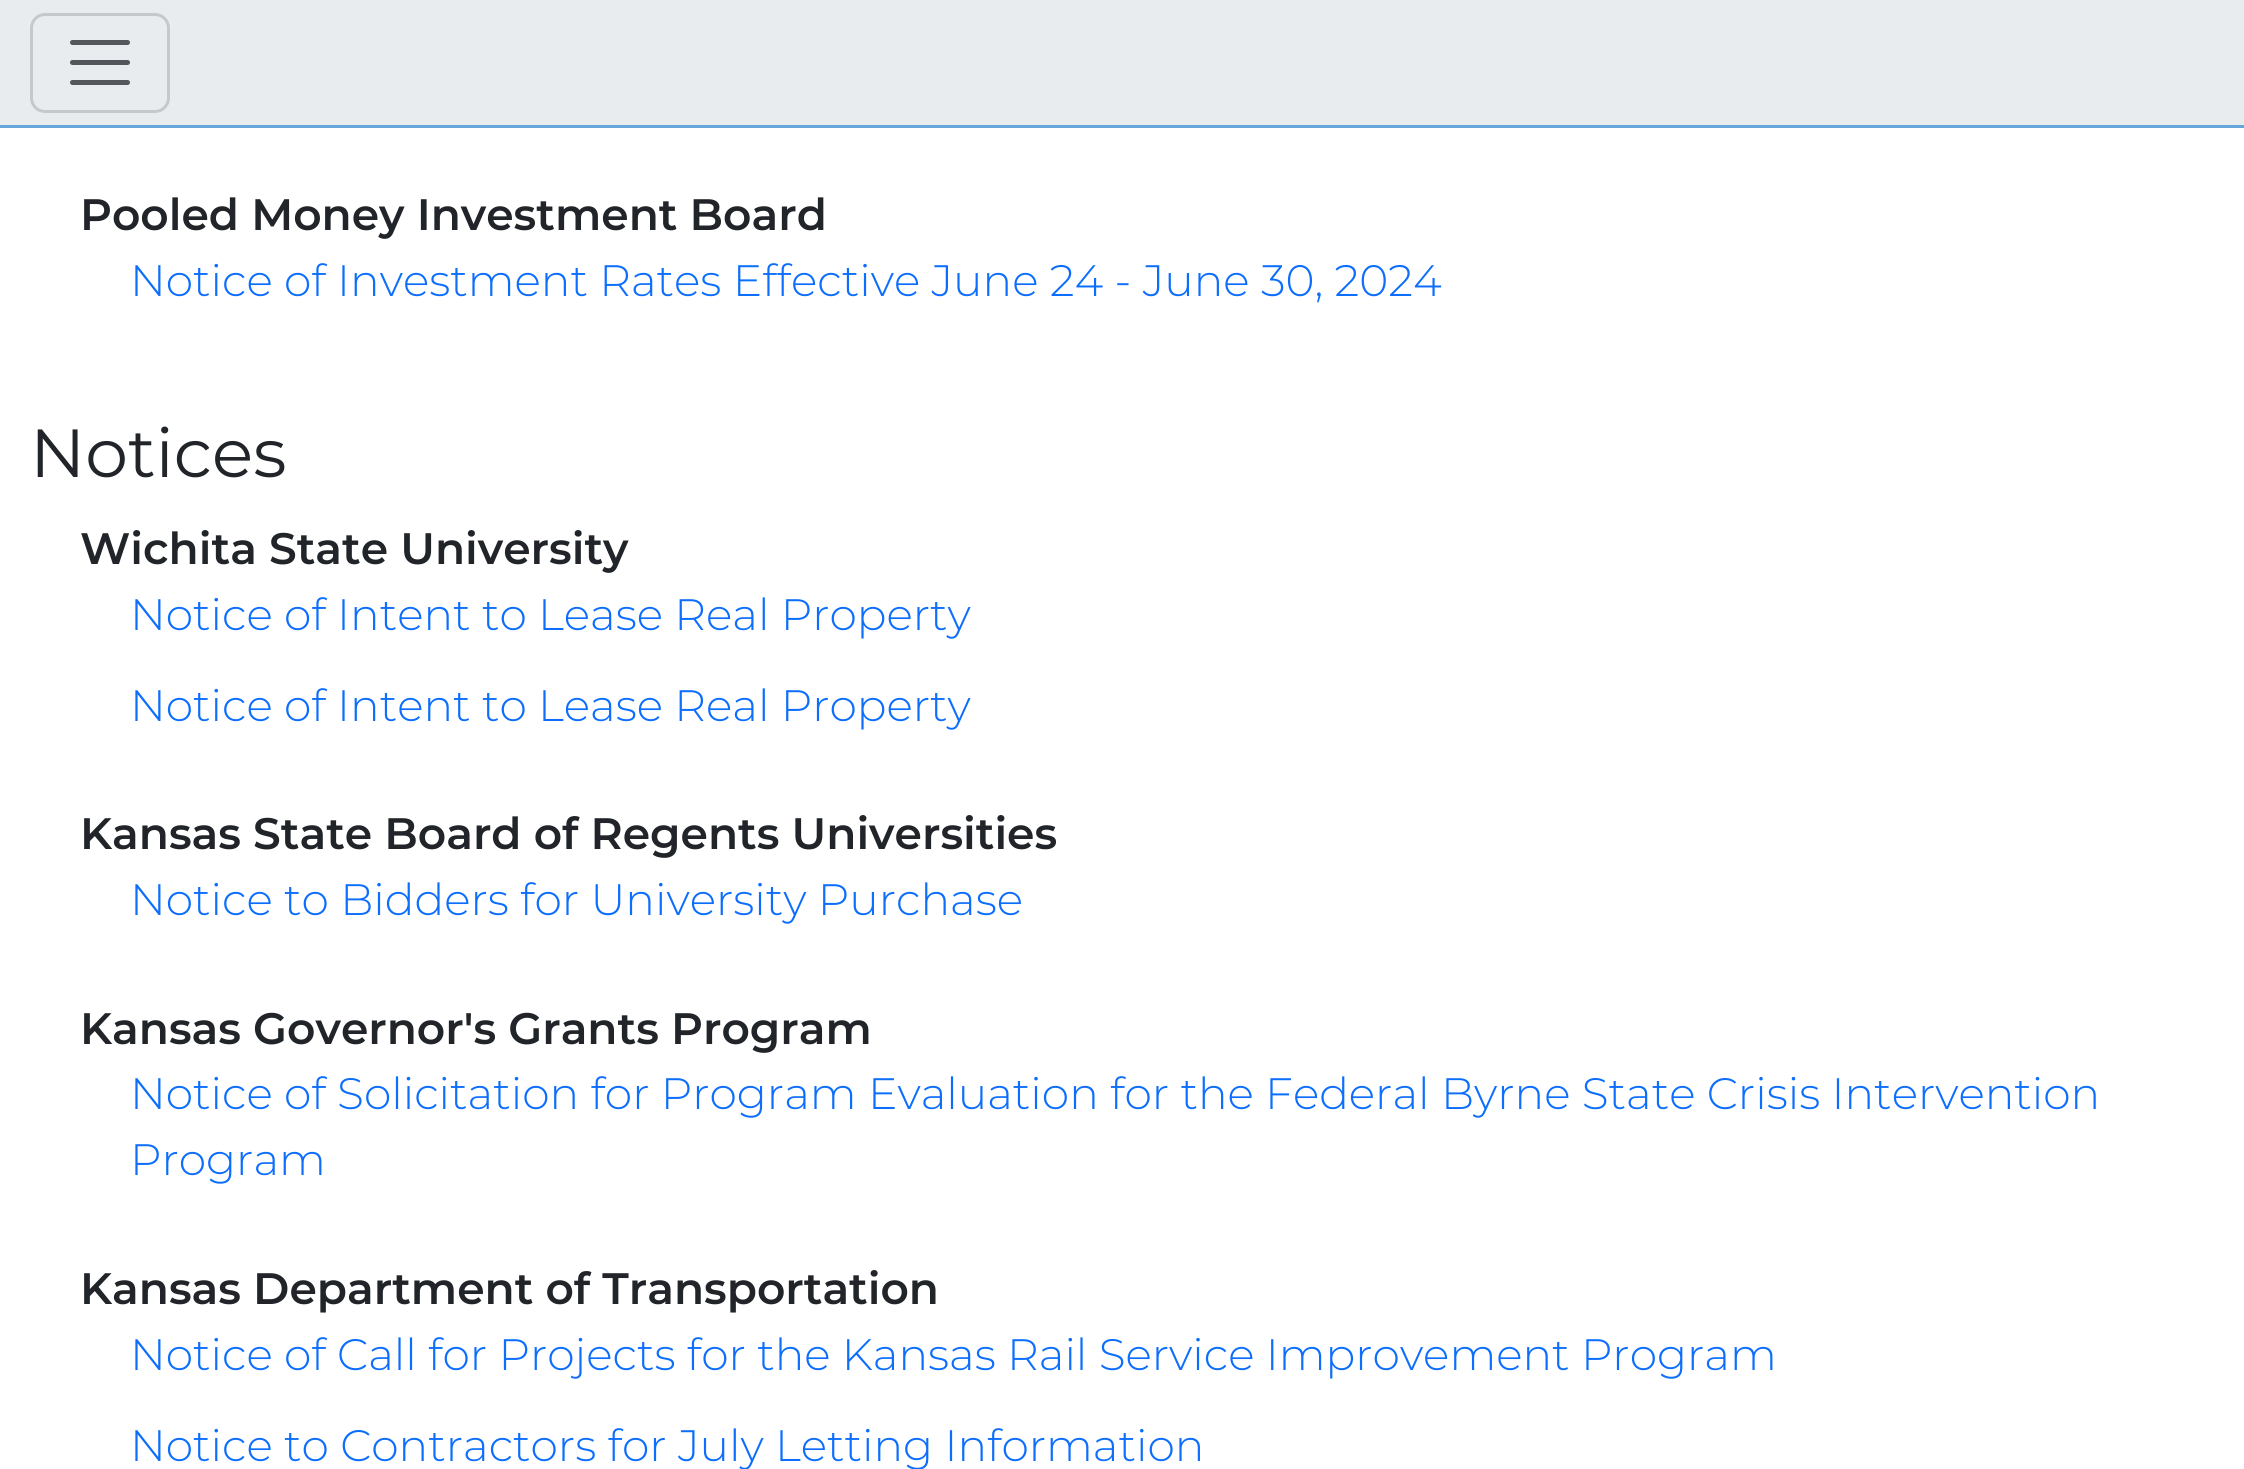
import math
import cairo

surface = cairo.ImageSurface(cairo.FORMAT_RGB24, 2244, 1469)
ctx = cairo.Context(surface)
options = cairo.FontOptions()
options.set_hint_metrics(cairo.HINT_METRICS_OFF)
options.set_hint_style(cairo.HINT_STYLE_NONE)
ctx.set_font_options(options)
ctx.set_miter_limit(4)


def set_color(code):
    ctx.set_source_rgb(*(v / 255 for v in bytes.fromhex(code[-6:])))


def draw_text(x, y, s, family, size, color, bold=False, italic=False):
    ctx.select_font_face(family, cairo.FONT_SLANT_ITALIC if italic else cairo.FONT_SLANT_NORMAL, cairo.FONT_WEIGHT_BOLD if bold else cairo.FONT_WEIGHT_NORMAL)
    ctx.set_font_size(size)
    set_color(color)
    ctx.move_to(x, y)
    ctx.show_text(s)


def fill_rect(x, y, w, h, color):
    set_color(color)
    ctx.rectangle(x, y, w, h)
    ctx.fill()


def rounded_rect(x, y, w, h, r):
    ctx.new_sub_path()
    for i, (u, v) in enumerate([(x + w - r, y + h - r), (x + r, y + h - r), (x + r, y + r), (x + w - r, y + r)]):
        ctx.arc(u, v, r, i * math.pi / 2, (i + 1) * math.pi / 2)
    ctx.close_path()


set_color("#ffffff")
ctx.paint()
fill_rect(0, 0, 2244, 125, "#e9ecef")
fill_rect(0, 125, 2244, 3, "#66a5da")
rounded_rect(31.5, 14.5, 137, 97, 13.5)
set_color("#c6c9cb")
ctx.set_line_width(3)
ctx.stroke()
ctx.new_path()
ctx.move_to(72.5, 42.5)
ctx.line_to(127.5, 42.5)
ctx.move_to(72.5, 62.5)
ctx.line_to(127.5, 62.5)
ctx.move_to(72.5, 82.5)
ctx.line_to(127.5, 82.5)
set_color("#53575b")
ctx.set_line_width(5)
ctx.set_line_cap(cairo.LINE_CAP_ROUND)
ctx.stroke()
draw_text(80, 230, "Pooled Money Investment Board", "Montserrat SemiBold", 44, "#212529")
draw_text(130, 296, "Notice of Investment Rates Effective June 24 - June 30, 2024", "Montserrat Light", 44, "#0d6efd")
draw_text(30, 477, "Notices", "Montserrat", 68, "#212529")
draw_text(80, 564, "Wichita State University", "Montserrat SemiBold", 44, "#212529")
draw_text(130, 630, "Notice of Intent to Lease Real Property", "Montserrat Light", 44, "#0d6efd")
draw_text(130, 721, "Notice of Intent to Lease Real Property", "Montserrat Light", 44, "#0d6efd")
draw_text(80, 849, "Kansas State Board of Regents Universities", "Montserrat SemiBold", 44, "#212529")
draw_text(130, 915, "Notice to Bidders for University Purchase", "Montserrat Light", 44, "#0d6efd")
draw_text(80, 1044, "Kansas Governor's Grants Program", "Montserrat SemiBold", 44, "#212529")
draw_text(130, 1109, "Notice of Solicitation for Program Evaluation for the Federal Byrne State Crisis Intervention", "Montserrat Light", 44, "#0d6efd")
draw_text(130, 1175, "Program", "Montserrat Light", 44, "#0d6efd")
draw_text(80, 1304, "Kansas Department of Transportation", "Montserrat SemiBold", 44, "#212529")
draw_text(130, 1370, "Notice of Call for Projects for the Kansas Rail Service Improvement Program", "Montserrat Light", 44, "#0d6efd")
draw_text(130, 1461, "Notice to Contractors for July Letting Information", "Montserrat Light", 44, "#0d6efd")
surface.write_to_png("output.png")
